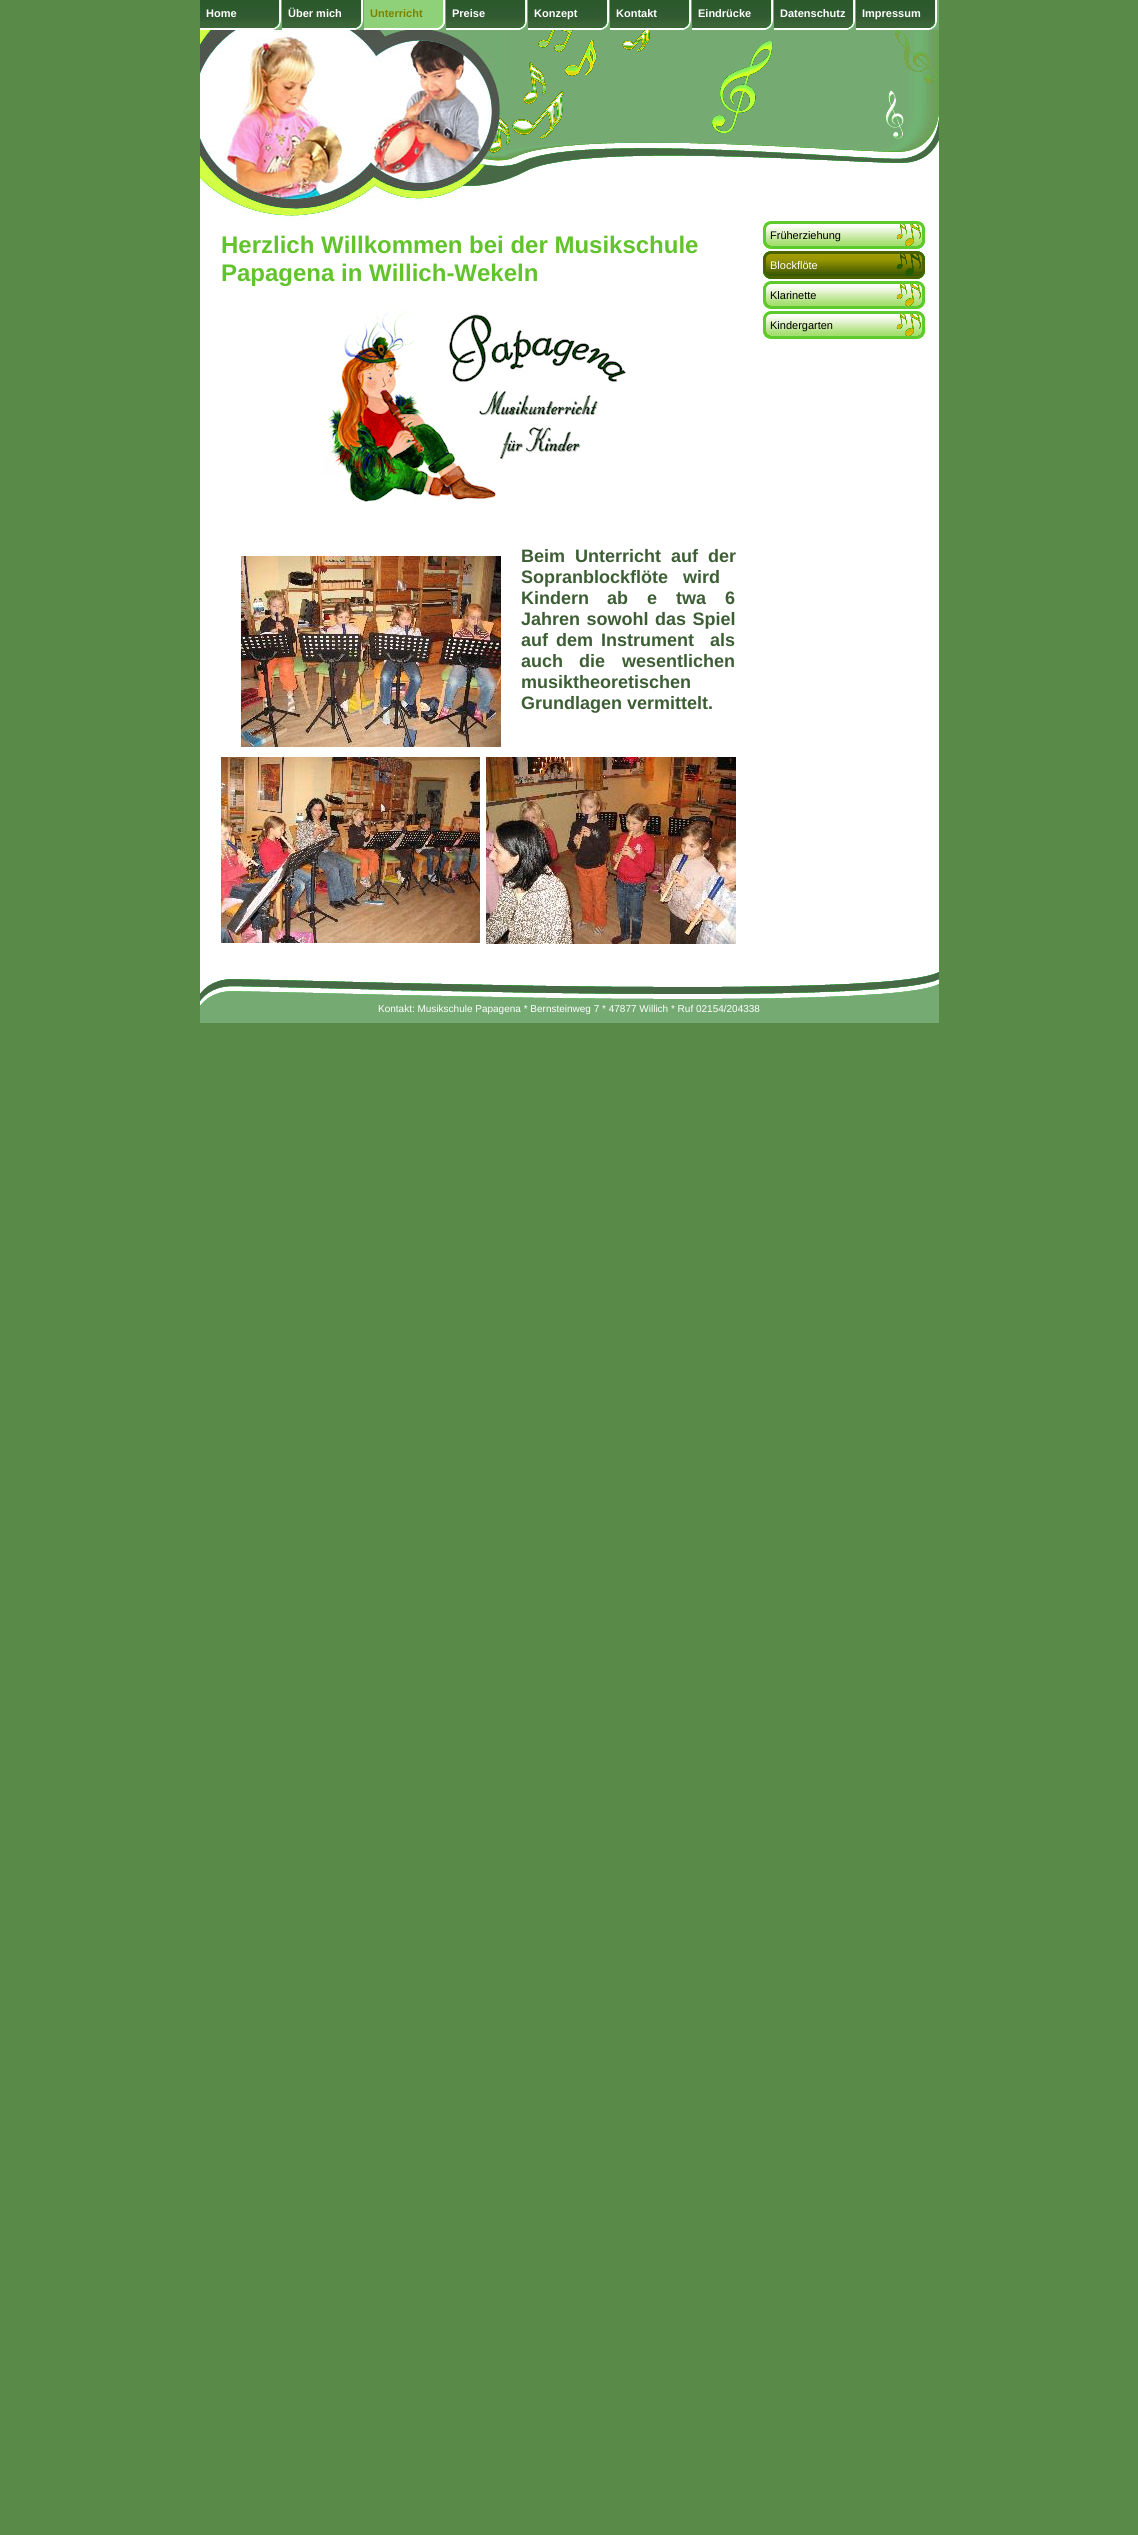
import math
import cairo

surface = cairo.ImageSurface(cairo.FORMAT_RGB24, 1138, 2535)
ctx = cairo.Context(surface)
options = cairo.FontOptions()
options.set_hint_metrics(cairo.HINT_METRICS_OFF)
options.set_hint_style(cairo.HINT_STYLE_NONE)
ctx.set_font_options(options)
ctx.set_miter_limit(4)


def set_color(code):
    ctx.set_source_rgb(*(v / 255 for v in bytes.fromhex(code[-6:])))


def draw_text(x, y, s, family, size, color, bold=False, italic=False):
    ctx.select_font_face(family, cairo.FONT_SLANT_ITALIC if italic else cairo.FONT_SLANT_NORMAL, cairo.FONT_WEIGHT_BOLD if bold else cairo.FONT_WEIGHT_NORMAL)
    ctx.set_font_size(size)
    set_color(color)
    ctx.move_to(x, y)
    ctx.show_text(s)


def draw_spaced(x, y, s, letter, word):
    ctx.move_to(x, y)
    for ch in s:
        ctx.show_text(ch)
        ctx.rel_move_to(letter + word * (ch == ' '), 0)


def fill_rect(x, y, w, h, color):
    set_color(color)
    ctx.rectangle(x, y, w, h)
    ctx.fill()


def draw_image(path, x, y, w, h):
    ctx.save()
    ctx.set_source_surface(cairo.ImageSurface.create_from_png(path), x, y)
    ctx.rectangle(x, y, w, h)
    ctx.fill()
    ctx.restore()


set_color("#5a8a48")
ctx.paint()
fill_rect(200, 216, 739, 756, "#ffffff")
fill_rect(281, 0, 658, 30, "#75ab73")
draw_image("assets/img1.png", 200, 0, 81, 30)
draw_text(206, 17, "Home", "Liberation Sans", 11, "#ffffff", bold=True)
draw_image("assets/img1.png", 282, 0, 81, 30)
draw_text(288, 17, "Über mich", "Liberation Sans", 11, "#ffffff", bold=True)
draw_image("assets/img2.png", 364, 0, 81, 30)
draw_text(370, 17, "Unterricht", "Liberation Sans", 11, "#7b8200", bold=True)
draw_image("assets/img1.png", 446, 0, 81, 30)
draw_text(452, 17, "Preise", "Liberation Sans", 11, "#ffffff", bold=True)
draw_image("assets/img1.png", 528, 0, 81, 30)
draw_text(534, 17, "Konzept", "Liberation Sans", 11, "#ffffff", bold=True)
draw_image("assets/img1.png", 610, 0, 81, 30)
draw_text(616, 17, "Kontakt", "Liberation Sans", 11, "#ffffff", bold=True)
draw_image("assets/img1.png", 692, 0, 81, 30)
draw_text(698, 17, "Eindrücke", "Liberation Sans", 11, "#ffffff", bold=True)
draw_image("assets/img1.png", 774, 0, 81, 30)
draw_text(780, 17, "Datenschutz", "Liberation Sans", 11, "#ffffff", bold=True)
draw_image("assets/img1.png", 856, 0, 81, 30)
draw_text(862, 17, "Impressum", "Liberation Sans", 11, "#ffffff", bold=True)
draw_image("assets/img3.png", 500, 30, 439, 186)
draw_image("assets/img4.png", 200, 30, 300, 190)
draw_text(221, 253, "Herzlich Willkommen bei der Musikschule", "Liberation Sans", 24, "#62c32c", bold=True)
draw_text(221, 281, "Papagena in Willich-Wekeln", "Liberation Sans", 24, "#62c32c", bold=True)
draw_image("assets/img5.png", 322, 302, 304, 200)
draw_image("assets/img6.png", 241, 556, 260, 191)
draw_text(521, 562, "Beim", "Liberation Sans", 18, "#3d5e35", bold=True)
draw_text(575, 562, "Unterricht", "Liberation Sans", 18, "#3d5e35", bold=True)
draw_text(671, 562, "au", "Liberation Sans", 18, "#3d5e35", bold=True)
draw_spaced(692, 562, "f der", 0, 5)
draw_spaced(521, 583, "Sopranblockflöte wird", 0, 10)
draw_text(521, 604, "Kindern", "Liberation Sans", 18, "#3d5e35", bold=True)
draw_spaced(607, 604, "ab e", 0, 14)
draw_text(676, 604, "twa", "Liberation Sans", 18, "#3d5e35", bold=True)
draw_text(725, 604, "6", "Liberation Sans", 18, "#3d5e35", bold=True)
draw_text(521, 625, "J", "Liberation Sans", 18, "#3d5e35", bold=True)
draw_spaced(531, 625, "ahren sowohl das Spiel", 0, 1.5)
draw_spaced(521, 646, "auf dem Instrument", 0, 3)
draw_text(710, 646, "als", "Liberation Sans", 18, "#3d5e35", bold=True)
draw_text(521, 667, "auch", "Liberation Sans", 18, "#3d5e35", bold=True)
draw_spaced(579, 667, "die wesen", 0, 12)
draw_text(677, 667, "tlichen", "Liberation Sans", 18, "#3d5e35", bold=True)
draw_text(521, 688, "musiktheoretischen", "Liberation Sans", 18, "#3d5e35", bold=True)
draw_text(521, 709, "Grundlagen vermittelt.", "Liberation Sans", 18, "#3d5e35", bold=True)
draw_image("assets/img7.png", 221, 757, 259, 186)
draw_image("assets/img8.png", 486, 757, 250, 187)
draw_image("assets/img9.png", 763, 221, 162, 28)
draw_text(770, 239, "Früherziehung", "Liberation Sans", 11, "#000000")
draw_image("assets/img10.png", 763, 251, 162, 28)
draw_text(770, 269, "Blockflöte", "Liberation Sans", 11, "#ffffff")
draw_image("assets/img9.png", 763, 281, 162, 28)
draw_text(770, 299, "Klarinette", "Liberation Sans", 11, "#000000")
draw_image("assets/img9.png", 763, 311, 162, 28)
draw_text(770, 329, "Kindergarten", "Liberation Sans", 11, "#000000")
draw_image("assets/img11.png", 200, 972, 739, 51)
draw_text(378, 1012, "Kontakt: Musikschule Papagena * Bernsteinweg 7 * 47877 Willich * Ruf 02154/204338", "Liberation Sans", 10, "#ffffff")
surface.write_to_png("output.png")
